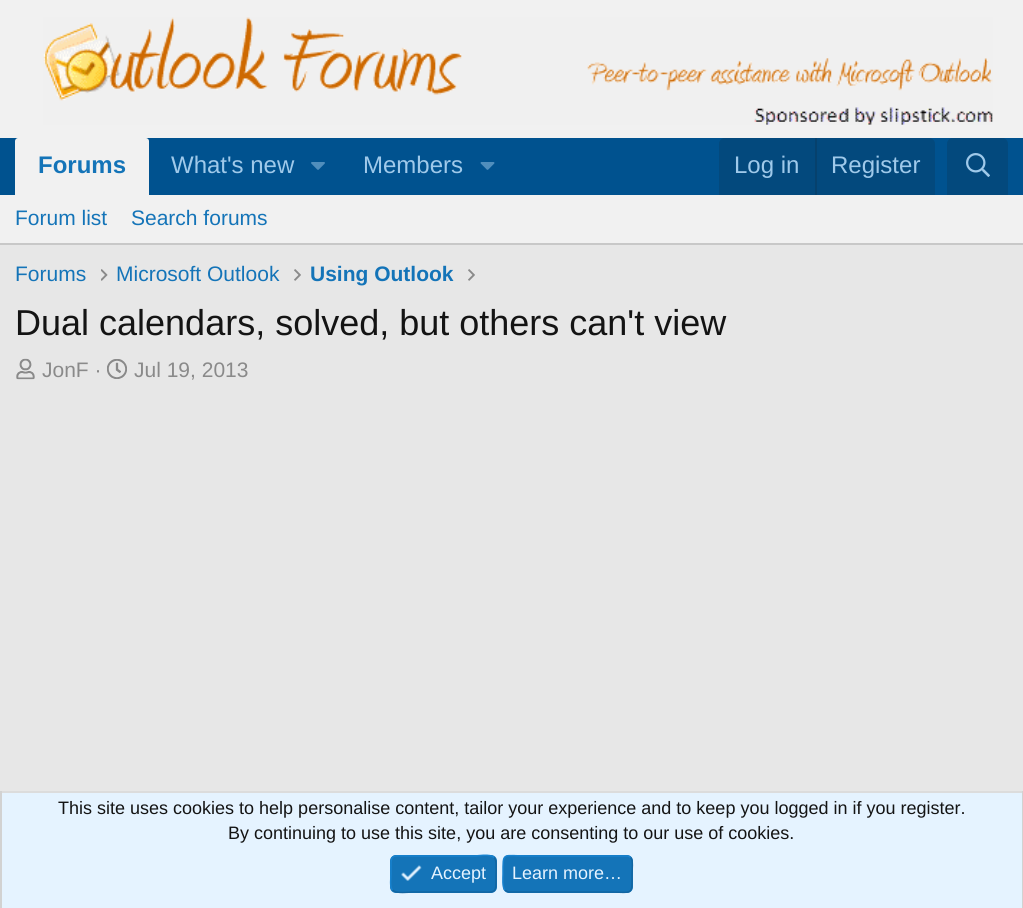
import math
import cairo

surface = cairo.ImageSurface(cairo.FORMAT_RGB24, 1023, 908)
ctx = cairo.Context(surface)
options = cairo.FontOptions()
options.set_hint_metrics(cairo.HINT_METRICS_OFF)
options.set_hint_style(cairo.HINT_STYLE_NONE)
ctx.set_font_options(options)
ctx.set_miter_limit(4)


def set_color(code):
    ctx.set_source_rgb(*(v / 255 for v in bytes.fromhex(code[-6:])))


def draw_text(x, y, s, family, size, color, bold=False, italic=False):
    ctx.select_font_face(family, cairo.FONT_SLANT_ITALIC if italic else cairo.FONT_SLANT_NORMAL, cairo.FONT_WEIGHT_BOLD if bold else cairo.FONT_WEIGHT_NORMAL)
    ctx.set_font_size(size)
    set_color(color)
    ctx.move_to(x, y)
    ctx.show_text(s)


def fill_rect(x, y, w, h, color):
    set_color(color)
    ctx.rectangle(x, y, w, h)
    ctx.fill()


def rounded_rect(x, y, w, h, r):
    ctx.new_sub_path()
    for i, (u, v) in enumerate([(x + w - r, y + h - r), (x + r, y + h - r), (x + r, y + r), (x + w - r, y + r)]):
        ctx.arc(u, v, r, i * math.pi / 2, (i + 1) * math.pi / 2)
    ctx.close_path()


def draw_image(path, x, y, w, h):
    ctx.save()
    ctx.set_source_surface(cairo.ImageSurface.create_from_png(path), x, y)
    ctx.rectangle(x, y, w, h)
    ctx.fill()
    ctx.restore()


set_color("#e7e7e7")
ctx.paint()
fill_rect(0, 0, 1023, 138, "#f1f1f1")
draw_image("assets/img1.png", 43, 17, 950, 108)
fill_rect(0, 138, 1023, 57, "#00528f")
set_color("#f1f1f1")
ctx.new_path()
ctx.move_to(18, 138)
ctx.line_to(146, 138)
ctx.curve_to(147.5, 138, 149, 139.5, 149, 141)
ctx.line_to(149, 195)
ctx.line_to(15, 195)
ctx.line_to(15, 141)
ctx.curve_to(15, 139.5, 16.5, 138, 18, 138)
ctx.close_path()
ctx.fill()
draw_text(38, 173, "Forums", "Liberation Sans", 24, "#1474b8", bold=True)
draw_text(171, 173, "What's new", "Liberation Sans", 24, "#9fc9ea")
draw_image("assets/img2.png", 311, 162, 14, 8)
draw_text(363, 173, "Members", "Liberation Sans", 24, "#9fc9ea")
draw_image("assets/img3.png", 480, 162, 15, 8)
set_color("#03497d")
ctx.new_path()
ctx.move_to(725, 138)
ctx.line_to(929, 138)
ctx.curve_to(932.5, 138, 935, 140.5, 935, 144)
ctx.line_to(935, 195)
ctx.line_to(719, 195)
ctx.line_to(719, 144)
ctx.curve_to(719, 140.5, 721.5, 138, 725, 138)
ctx.close_path()
ctx.fill()
draw_text(734, 173, "Log in", "Liberation Sans", 24, "#9fc9ea")
fill_rect(815, 138, 2, 57, "#06416d")
draw_text(831, 173, "Register", "Liberation Sans", 24, "#9fc9ea")
set_color("#03497d")
ctx.new_path()
ctx.move_to(953, 138)
ctx.line_to(1002, 138)
ctx.curve_to(1005.5, 138, 1008, 140.5, 1008, 144)
ctx.line_to(1008, 195)
ctx.line_to(947, 195)
ctx.line_to(947, 144)
ctx.curve_to(947, 140.5, 949.5, 138, 953, 138)
ctx.close_path()
ctx.fill()
draw_image("assets/img4.png", 966, 153, 24, 24)
fill_rect(0, 195, 1023, 48, "#f1f1f1")
fill_rect(0, 243, 1023, 2, "#c8c8c8")
draw_text(15, 225, "Forum list", "Liberation Sans", 21, "#1474b8")
draw_text(131, 225, "Search forums", "Liberation Sans", 21, "#1474b8")
draw_text(15, 281, "Forums", "Liberation Sans", 21, "#1474b8")
draw_image("assets/img5.png", 101, 269, 7, 12)
draw_text(116, 281, "Microsoft Outlook", "Liberation Sans", 21, "#1474b8")
draw_image("assets/img6.png", 294, 269, 7, 12)
draw_text(310, 281, "Using Outlook", "Liberation Sans", 21, "#1474b8", bold=True)
draw_image("assets/img6.png", 468, 269, 7, 12)
draw_text(15, 335, "Dual calendars, solved, but others can't view", "Liberation Sans", 36, "#141414")
draw_image("assets/img7.png", 16, 358, 19, 22)
draw_text(42, 377, "JonF ·", "Liberation Sans", 21, "#8a8a8a")
draw_image("assets/img8.png", 107, 359, 20, 20)
draw_text(134, 377, "Jul 19, 2013", "Liberation Sans", 21, "#8a8a8a")
fill_rect(2, 793, 1020, 115, "#e5f3ff")
fill_rect(0, 791, 1023, 2, "#dcdcdc")
fill_rect(1022, 791, 1, 117, "#d2d2d2")
fill_rect(0, 791, 2, 117, "#d2d2d2")
draw_text(58, 814, "This site uses cookies to help personalise content, tailor your experience and to keep you logged in if you register.", "Liberation Sans", 18, "#141414")
draw_text(228, 839, "By continuing to use this site, you are consenting to our use of cookies.", "Liberation Sans", 18, "#141414")
set_color("#1474b8")
rounded_rect(390, 855, 107, 38, 6)
ctx.fill()
ctx.new_path()
ctx.move_to(494, 857.5)
ctx.curve_to(497, 860, 496, 870, 496, 874)
ctx.curve_to(496, 895, 497.5, 892, 475, 892)
ctx.line_to(412, 892)
ctx.curve_to(410, 892, 396, 894, 392.5, 890)
set_color("#1265a1")
ctx.set_line_width(1.5)
ctx.stroke()
ctx.new_path()
ctx.move_to(392.5, 890)
ctx.curve_to(389.5, 887.5, 391, 877.5, 391, 874)
ctx.curve_to(391, 852.5, 389, 856, 412, 856)
ctx.line_to(475, 856)
ctx.curve_to(476.5, 856, 490.5, 853.5, 494, 857.5)
set_color("#1782cf")
ctx.stroke()
draw_image("assets/img9.png", 401, 865, 21, 16)
draw_text(431, 879, "Accept", "Liberation Sans", 18, "#e5f3ff")
set_color("#1474b8")
rounded_rect(503, 855, 130, 38, 6)
ctx.fill()
ctx.new_path()
ctx.move_to(630.5, 857.5)
ctx.curve_to(633.5, 860, 632, 870, 632, 874)
ctx.curve_to(632, 896.5, 633.5, 892, 607, 892)
ctx.line_to(508.5, 892)
ctx.curve_to(507, 891.5, 506, 891, 505, 890)
set_color("#1265a1")
ctx.stroke()
ctx.new_path()
ctx.move_to(505, 890)
ctx.curve_to(502, 887.5, 503, 877.5, 503, 874)
ctx.curve_to(503, 851, 502, 856, 528, 856)
ctx.line_to(627, 856)
ctx.curve_to(628.5, 856, 629.5, 856.5, 630.5, 857.5)
set_color("#1782cf")
ctx.stroke()
draw_text(512, 879, "Learn more…", "Liberation Sans", 18, "#e5f3ff")
surface.write_to_png("output.png")
